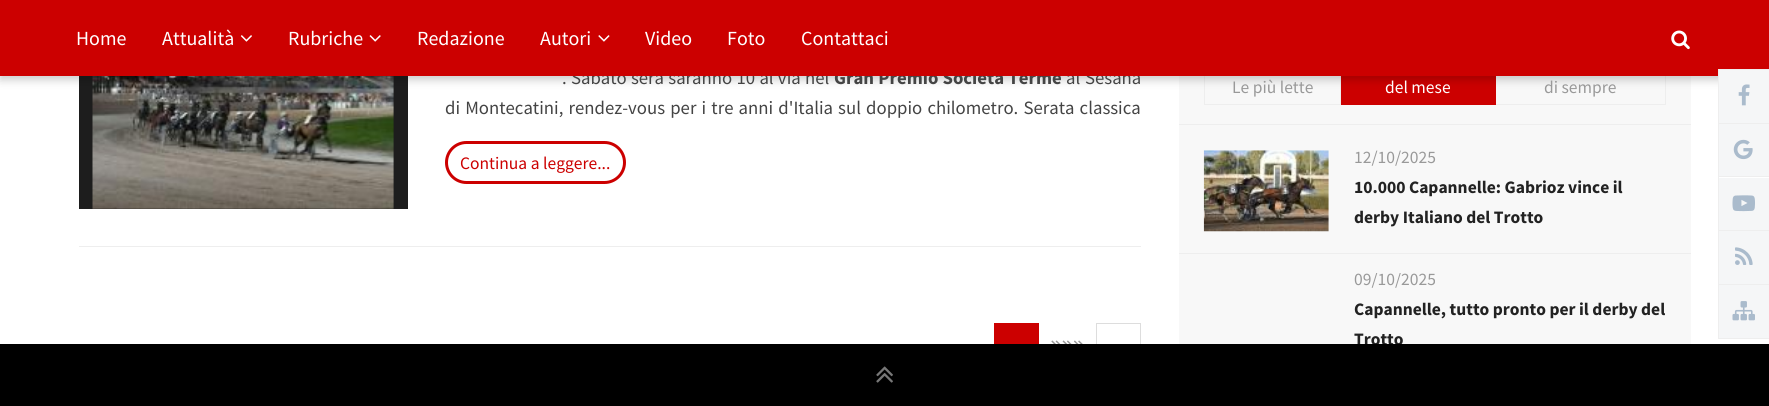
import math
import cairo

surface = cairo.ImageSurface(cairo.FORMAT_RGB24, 1769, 406)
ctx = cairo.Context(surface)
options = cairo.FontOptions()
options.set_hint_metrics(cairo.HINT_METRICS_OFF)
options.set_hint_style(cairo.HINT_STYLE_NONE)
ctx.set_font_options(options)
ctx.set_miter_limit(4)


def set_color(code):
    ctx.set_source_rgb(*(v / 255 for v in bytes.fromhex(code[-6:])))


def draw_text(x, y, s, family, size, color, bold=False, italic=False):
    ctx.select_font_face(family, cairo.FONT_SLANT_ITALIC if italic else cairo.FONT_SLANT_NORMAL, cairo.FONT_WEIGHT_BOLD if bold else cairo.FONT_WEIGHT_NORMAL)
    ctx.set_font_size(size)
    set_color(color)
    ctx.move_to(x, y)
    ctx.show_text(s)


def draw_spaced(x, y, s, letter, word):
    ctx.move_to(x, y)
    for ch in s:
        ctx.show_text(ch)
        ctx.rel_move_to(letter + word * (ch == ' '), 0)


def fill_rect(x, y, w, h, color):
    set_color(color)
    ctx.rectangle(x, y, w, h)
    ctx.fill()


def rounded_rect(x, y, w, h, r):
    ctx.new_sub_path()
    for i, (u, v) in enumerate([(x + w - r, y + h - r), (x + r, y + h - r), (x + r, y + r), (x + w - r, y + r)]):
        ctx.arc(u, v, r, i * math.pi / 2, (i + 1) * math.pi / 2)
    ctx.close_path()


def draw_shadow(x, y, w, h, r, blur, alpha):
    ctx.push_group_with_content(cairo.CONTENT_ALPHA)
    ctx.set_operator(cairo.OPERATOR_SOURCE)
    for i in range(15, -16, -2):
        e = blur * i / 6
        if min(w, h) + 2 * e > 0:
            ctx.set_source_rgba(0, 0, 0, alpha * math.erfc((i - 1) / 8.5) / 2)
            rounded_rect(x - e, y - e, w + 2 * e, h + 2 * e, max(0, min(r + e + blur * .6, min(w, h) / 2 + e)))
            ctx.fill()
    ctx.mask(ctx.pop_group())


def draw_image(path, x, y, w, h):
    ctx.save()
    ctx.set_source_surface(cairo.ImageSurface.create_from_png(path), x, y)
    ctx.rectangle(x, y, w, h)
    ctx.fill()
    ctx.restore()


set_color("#ffffff")
ctx.paint()
fill_rect(79, 76, 329, 133, "#1d1d1d")
draw_image("assets/img5.png", 92, 76, 302, 133)
fill_rect(1179, 76, 512, 268, "#f8f8f8")
ctx.rectangle(1204.5, 68.5, 136, 36)
set_color("#eeeeee")
ctx.set_line_width(1)
ctx.stroke()
fill_rect(1341, 76, 154, 28, "#cc0000")
fill_rect(1495, 68, 1, 37, "#cc0000")
fill_rect(1665, 68, 1, 37, "#eeeeee")
set_color("#000000")
draw_shadow(0, 4, 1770, 76, 0, 4.5, 0.2)
ctx.select_font_face("Source Sans Pro")
ctx.set_font_size(18.75)
set_color("#444444")
draw_spaced(562, 84, ". Sabato sera saranno 10 al via nel", 0, 0.5)
ctx.select_font_face("Source Sans Pro", cairo.FONT_SLANT_NORMAL, cairo.FONT_WEIGHT_BOLD)
draw_spaced(834, 84, "Gran Premio Società Terme", 0, 0.5)
ctx.select_font_face("Source Sans Pro")
draw_spaced(1066, 84, "al Sesana", 0, 1)
fill_rect(0, 0, 1769, 76, "#cc0000")
draw_text(76, 45, "Home", "Source Sans Pro", 20, "#ffffff")
draw_text(162, 45, "Attualità", "Source Sans Pro", 20, "#ffffff")
draw_image("assets/img1.png", 240, 35, 12, 7)
draw_text(288, 45, "Rubriche", "Source Sans Pro", 20, "#ffffff")
draw_image("assets/img2.png", 369, 35, 12, 7)
draw_text(417, 45, "Redazione", "Source Sans Pro", 20, "#ffffff")
draw_text(540, 45, "Autori", "Source Sans Pro", 20, "#ffffff")
draw_image("assets/img3.png", 598, 35, 12, 7)
draw_text(645, 45, "Video", "Source Sans Pro", 20, "#ffffff")
draw_text(727, 45, "Foto", "Source Sans Pro", 20, "#ffffff")
draw_text(801, 45, "Contattaci", "Source Sans Pro", 20, "#ffffff")
draw_image("assets/img4.png", 1671, 30, 19, 20)
ctx.set_font_size(18.75)
set_color("#444444")
draw_spaced(445, 114, "di Montecatini, rendez-vous per i tre anni d'Italia sul doppio chilometro. Serata classica", 0, 1.4)
rounded_rect(446.5, 142.5, 178, 40, 20)
set_color("#cc0000")
ctx.set_line_width(3)
ctx.stroke()
draw_text(460, 169, "Continua a leggere...", "Source Sans Pro", 17.5, "#cc0000")
fill_rect(79, 246, 1062, 1, "#eeeeee")
fill_rect(994, 323, 45, 21, "#cc0000")
draw_image("assets/img6.png", 1051, 340, 10, 4)
draw_image("assets/img7.png", 1062, 340, 10, 4)
draw_image("assets/img8.png", 1074, 340, 9, 4)
ctx.rectangle(1096.5, 323.5, 44, 44)
set_color("#dddddd")
ctx.set_line_width(1)
ctx.stroke()
draw_text(1232, 93, "Le più lette", "Source Sans Pro", 17.5, "#999999")
fill_rect(1341, 104, 155, 1, "#cc0000")
draw_text(1385, 93, "del mese", "Source Sans Pro", 17.5, "#ffffff")
fill_rect(1496, 104, 170, 1, "#eeeeee")
draw_text(1544, 93, "di sempre", "Source Sans Pro", 17.5, "#999999")
fill_rect(1179, 124, 512, 1, "#eeeeee")
draw_image("assets/img9.png", 1203, 150, 126, 82)
draw_text(1354, 163, "12/10/2025", "Source Sans Pro", 17.5, "#999999")
draw_text(1354, 193, "10.000 Capannelle: Gabrioz vince il", "Source Sans Pro", 17.5, "#222222", bold=True)
draw_text(1354, 223, "derby Italiano del Trotto", "Source Sans Pro", 17.5, "#222222", bold=True)
fill_rect(1179, 253, 512, 1, "#eeeeee")
ctx.save()
ctx.rectangle(1354, 273, 312, 83)
ctx.clip()
draw_text(1354, 285, "09/10/2025", "Source Sans Pro", 17.5, "#999999")
ctx.restore()
draw_text(1354, 315, "Capannelle, tutto pronto per il derby del", "Source Sans Pro", 17.5, "#222222", bold=True)
draw_text(1354, 345, "Trotto", "Source Sans Pro", 17.5, "#222222", bold=True)
set_color("#f5f6f7")
ctx.rectangle(1718.5, 69.5, 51, 54)
ctx.fill_preserve()
set_color("#eeeeee")
ctx.stroke()
draw_image("assets/img10.png", 1738, 84, 12, 22)
fill_rect(1719, 124, 50, 52, "#f5f6f7")
fill_rect(1718, 176, 51, 1, "#eeeeee")
fill_rect(1718, 124, 1, 54, "#eeeeee")
draw_image("assets/img11.png", 1733, 139, 20, 21)
fill_rect(1719, 178, 50, 52, "#f5f6f7")
fill_rect(1718, 230, 51, 1, "#eeeeee")
fill_rect(1718, 178, 1, 53, "#eeeeee")
draw_image("assets/img12.png", 1732, 195, 23, 17)
fill_rect(1719, 231, 50, 53, "#f5f6f7")
fill_rect(1718, 284, 51, 1, "#eeeeee")
fill_rect(1718, 231, 1, 54, "#eeeeee")
draw_image("assets/img13.png", 1735, 247, 18, 18)
fill_rect(1719, 285, 50, 53, "#f5f6f7")
fill_rect(1718, 338, 51, 1, "#eeeeee")
fill_rect(1718, 285, 1, 54, "#eeeeee")
draw_image("assets/img14.png", 1732, 301, 23, 20)
fill_rect(0, 344, 1769, 62, "#000000")
draw_image("assets/img15.png", 876, 366, 17, 17)
surface.write_to_png("output.png")
